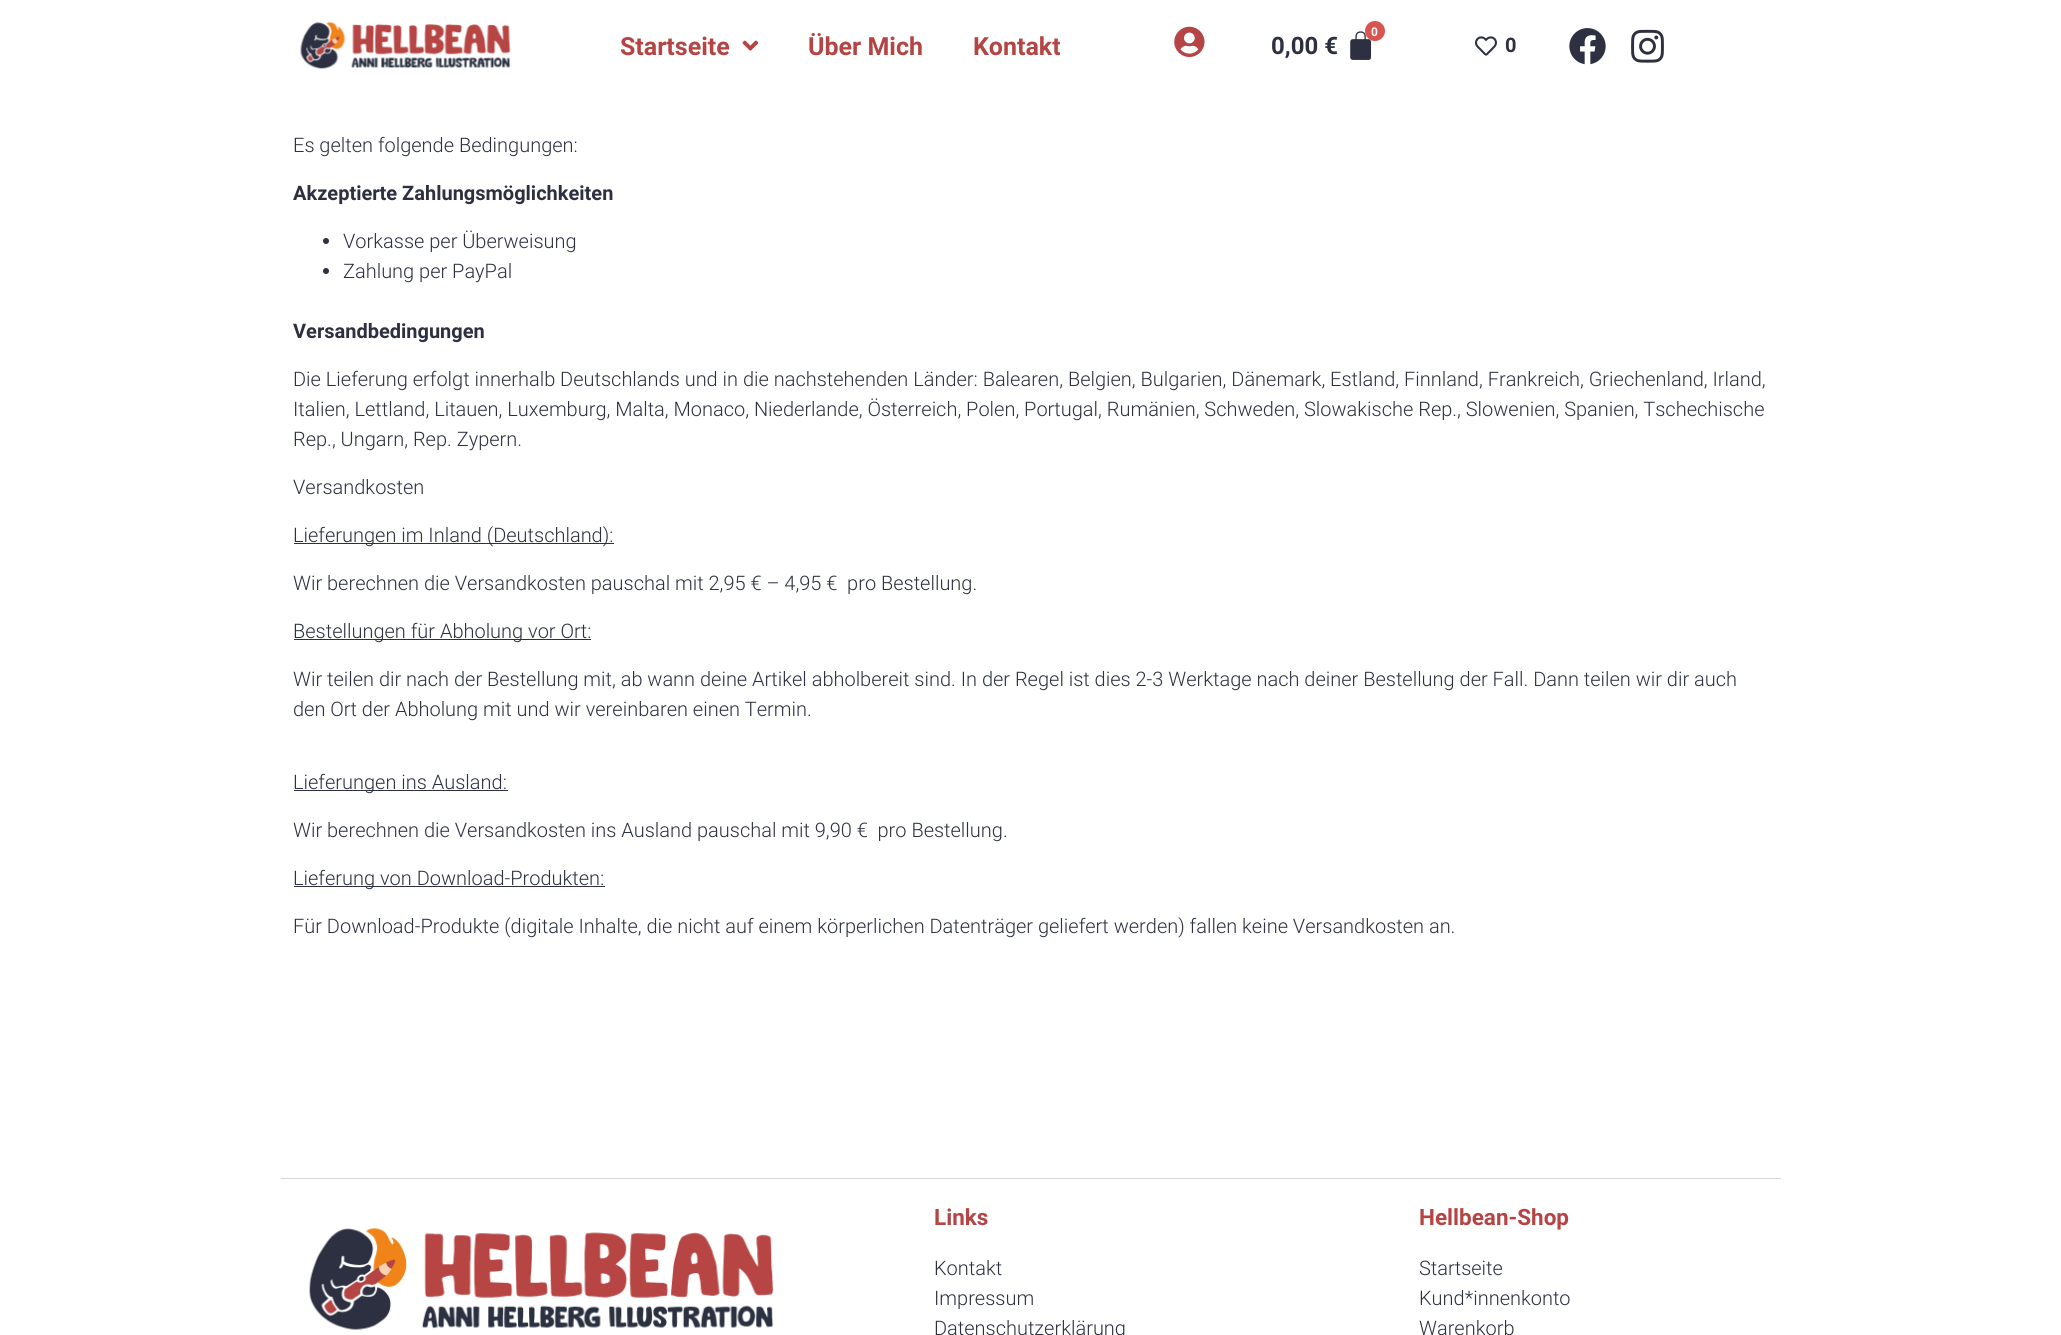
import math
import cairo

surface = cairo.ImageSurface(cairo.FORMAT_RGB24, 2061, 1335)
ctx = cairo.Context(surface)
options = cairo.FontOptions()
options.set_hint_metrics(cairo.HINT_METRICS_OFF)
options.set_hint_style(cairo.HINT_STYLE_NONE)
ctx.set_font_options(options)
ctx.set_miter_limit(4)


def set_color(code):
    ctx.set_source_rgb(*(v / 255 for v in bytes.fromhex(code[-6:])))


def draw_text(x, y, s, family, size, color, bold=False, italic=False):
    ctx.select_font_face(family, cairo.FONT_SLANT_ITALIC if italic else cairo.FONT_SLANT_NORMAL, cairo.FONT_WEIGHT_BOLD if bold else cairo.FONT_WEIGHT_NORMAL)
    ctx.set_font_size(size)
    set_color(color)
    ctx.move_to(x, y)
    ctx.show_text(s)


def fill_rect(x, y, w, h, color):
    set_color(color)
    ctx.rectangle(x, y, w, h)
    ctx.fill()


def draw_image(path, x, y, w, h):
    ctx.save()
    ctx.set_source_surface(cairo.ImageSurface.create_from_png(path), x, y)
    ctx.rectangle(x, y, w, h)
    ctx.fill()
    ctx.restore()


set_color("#ffffff")
ctx.paint()
draw_image("assets/img1.png", 300, 22, 211, 47)
draw_text(620, 55, "Startseite", "Roboto", 25, "#b54544", bold=True)
draw_image("assets/img2.png", 742, 40, 17, 11)
draw_text(808, 55, "Über Mich", "Roboto", 25, "#b54544", bold=True)
draw_text(973, 55, "Kontakt", "Roboto", 25, "#b54544", bold=True)
draw_image("assets/img3.png", 1174, 26, 31, 31)
draw_image("assets/img4.png", 1350, 31, 22, 29)
set_color("#d9534f")
ctx.arc(1375, 31, 10, 0, 2 * math.pi)
ctx.fill()
draw_text(1371, 36, "0", "Roboto", 12, "#ffffff", bold=True)
draw_text(1271, 54, "0,00 €", "Roboto", 24, "#2c3040", bold=True)
draw_image("assets/img5.png", 1475, 36, 22, 20)
draw_text(1505, 52, "0", "Roboto", 20, "#2c3040", bold=True)
draw_image("assets/img6.png", 1569, 28, 37, 37)
draw_image("assets/img7.png", 1631, 29, 33, 34)
draw_text(293, 152, "Es gelten folgende Bedingungen:", "Roboto Light", 20, "#2c3040")
draw_text(293, 200, "Akzeptierte Zahlungsmöglichkeiten", "Roboto", 20, "#2c3040", bold=True)
ctx.new_path()
ctx.arc(326, 241, 3, 0, 2 * math.pi)
ctx.fill()
draw_text(343, 248, "Vorkasse per Überweisung", "Roboto Light", 20, "#2c3040")
ctx.new_path()
ctx.arc(326, 271, 3, 0, 2 * math.pi)
ctx.fill()
draw_text(343, 278, "Zahlung per PayPal", "Roboto Light", 20, "#2c3040")
draw_text(293, 338, "Versandbedingungen", "Roboto", 20, "#2c3040", bold=True)
draw_text(293, 386, "Die Lieferung erfolgt innerhalb Deutschlands und in die nachstehenden Länder: Balearen, Belgien, Bulgarien, Dänemark, Estland, Finnland, Frankreich, Griechenland, Irland,", "Roboto Light", 20, "#2c3040")
draw_text(293, 416, "Italien, Lettland, Litauen, Luxemburg, Malta, Monaco, Niederlande, Österreich, Polen, Portugal, Rumänien, Schweden, Slowakische Rep., Slowenien, Spanien, Tschechische", "Roboto Light", 20, "#2c3040")
draw_text(293, 446, "Rep., Ungarn, Rep. Zypern.", "Roboto Light", 20, "#2c3040")
draw_text(293, 494, "Versandkosten", "Roboto Light", 20, "#2c3040")
fill_rect(294, 543, 320, 1, "#2c3040")
draw_text(293, 542, "Lieferungen im Inland (Deutschland):", "Roboto Light", 20, "#2c3040")
draw_text(293, 590, "Wir berechnen die Versandkosten pauschal mit 2,95 € – 4,95 €  pro Bestellung.", "Roboto Light", 20, "#2c3040")
fill_rect(294, 639, 297, 1, "#2c3040")
draw_text(293, 638, "Bestellungen für Abholung vor Ort:", "Roboto Light", 20, "#2c3040")
draw_text(293, 686, "Wir teilen dir nach der Bestellung mit, ab wann deine Artikel abholbereit sind. In der Regel ist dies 2-3 Werktage nach deiner Bestellung der Fall. Dann teilen wir dir auch", "Roboto Light", 20, "#2c3040")
draw_text(293, 716, "den Ort der Abholung mit und wir vereinbaren einen Termin.", "Roboto Light", 20, "#2c3040")
fill_rect(294, 790, 214, 1, "#2c3040")
draw_text(293, 789, "Lieferungen ins Ausland:", "Roboto Light", 20, "#2c3040")
draw_text(293, 837, "Wir berechnen die Versandkosten ins Ausland pauschal mit 9,90 €  pro Bestellung.", "Roboto Light", 20, "#2c3040")
fill_rect(294, 886, 311, 1, "#2c3040")
draw_text(293, 885, "Lieferung von Download-Produkten:", "Roboto Light", 20, "#2c3040")
draw_text(293, 933, "Für Download-Produkte (digitale Inhalte, die nicht auf einem körperlichen Datenträger geliefert werden) fallen keine Versandkosten an.", "Roboto Light", 20, "#2c3040")
fill_rect(281, 1178, 1500, 1, "#d6d6d6")
draw_image("assets/img8.png", 309, 1228, 465, 102)
draw_text(934, 1225, "Links", "Roboto", 22.5, "#b54544", bold=True)
draw_text(934, 1275, "Kontakt", "Roboto Light", 20, "#2c3040")
draw_text(934, 1305, "Impressum", "Roboto Light", 20, "#2c3040")
draw_text(934, 1335, "Datenschutzerklärung", "Roboto Light", 20, "#2c3040")
draw_text(1419, 1225, "Hellbean-Shop", "Roboto", 22.5, "#b54544", bold=True)
draw_text(1419, 1275, "Startseite", "Roboto Light", 20, "#2c3040")
draw_text(1419, 1305, "Kund*innenkonto", "Roboto Light", 20, "#2c3040")
draw_text(1419, 1335, "Warenkorb", "Roboto Light", 20, "#2c3040")
surface.write_to_png("output.png")
